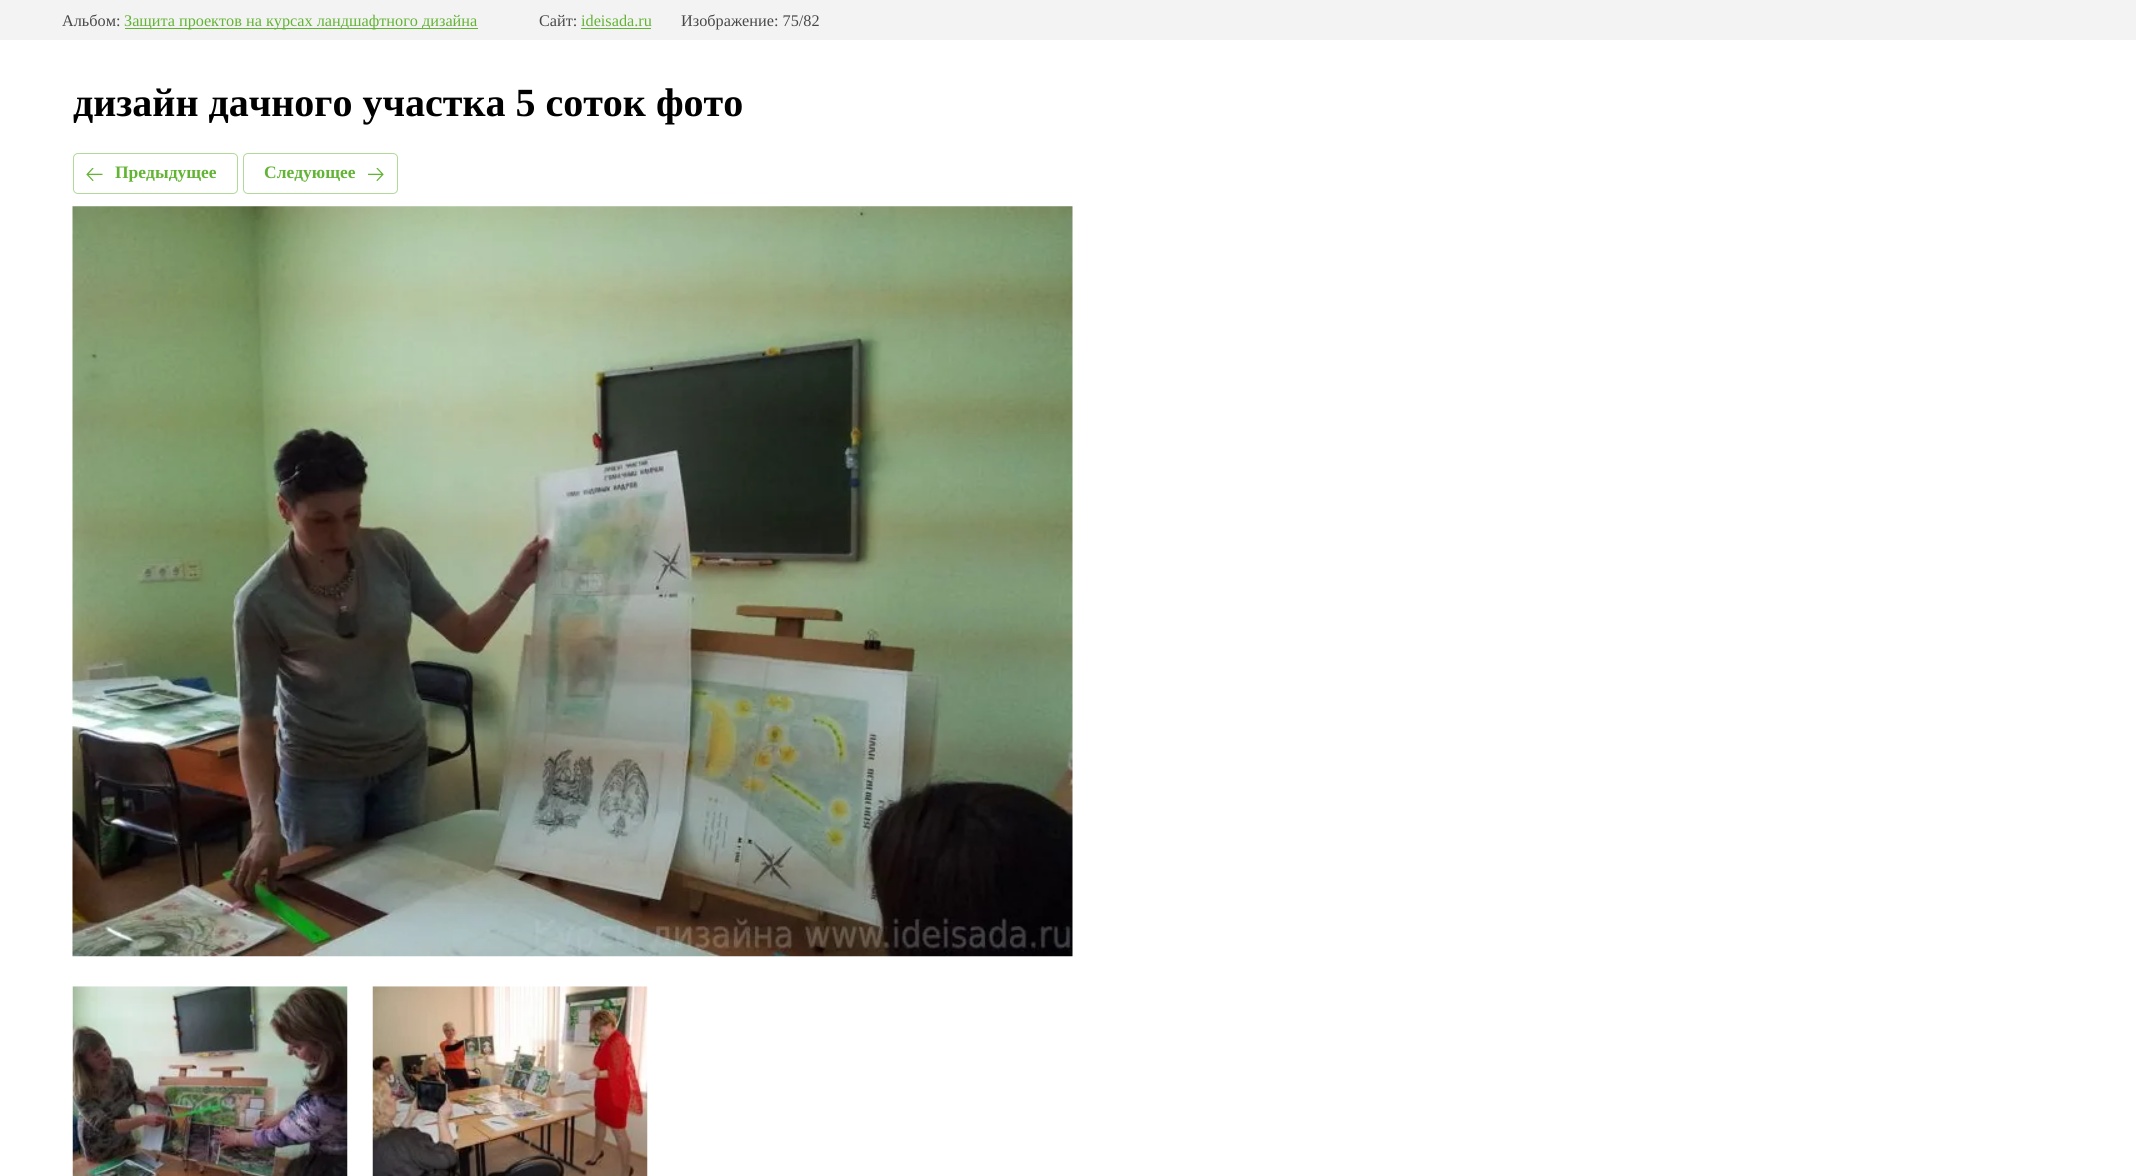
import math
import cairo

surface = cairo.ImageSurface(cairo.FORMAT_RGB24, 2136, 1176)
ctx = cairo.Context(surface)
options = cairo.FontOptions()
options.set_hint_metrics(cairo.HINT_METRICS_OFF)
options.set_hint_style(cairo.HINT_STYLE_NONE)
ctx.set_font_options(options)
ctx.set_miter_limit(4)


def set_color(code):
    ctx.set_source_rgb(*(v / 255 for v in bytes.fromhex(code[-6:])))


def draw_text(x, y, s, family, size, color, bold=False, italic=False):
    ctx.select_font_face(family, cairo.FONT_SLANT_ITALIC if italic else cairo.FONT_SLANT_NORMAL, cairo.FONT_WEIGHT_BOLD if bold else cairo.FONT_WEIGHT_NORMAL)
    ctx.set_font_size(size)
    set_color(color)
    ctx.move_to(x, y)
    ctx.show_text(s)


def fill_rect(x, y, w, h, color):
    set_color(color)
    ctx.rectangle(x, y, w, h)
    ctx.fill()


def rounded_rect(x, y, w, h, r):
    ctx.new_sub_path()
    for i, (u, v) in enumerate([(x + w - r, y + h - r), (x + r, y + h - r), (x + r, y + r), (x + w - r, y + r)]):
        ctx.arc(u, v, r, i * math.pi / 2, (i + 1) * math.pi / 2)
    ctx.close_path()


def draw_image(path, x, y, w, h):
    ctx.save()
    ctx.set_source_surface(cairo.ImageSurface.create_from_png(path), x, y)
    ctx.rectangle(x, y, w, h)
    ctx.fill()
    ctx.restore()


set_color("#ffffff")
ctx.paint()
fill_rect(0, 0, 2136, 40, "#f3f3f3")
draw_text(62, 26, "Альбом:", "Liberation Serif", 16.25, "#484848")
fill_rect(125, 28, 353, 1, "#63b435")
draw_text(124, 26, "Защита проектов на курсах ландшафтного дизайна", "Liberation Serif", 16.25, "#63b435")
draw_text(539, 26, "Сайт:", "Liberation Serif", 16.25, "#484848")
draw_text(581, 26, "ideisada.ru", "Liberation Serif", 16.25, "#63b435")
fill_rect(581, 28, 70, 1, "#63b435")
draw_text(681, 26, "Изображение: 75/82", "Liberation Serif", 16.25, "#484848")
draw_text(73, 116, "дизайн дачного участка 5 соток фото", "Liberation Serif", 40, "#000000", bold=True)
rounded_rect(73.5, 153.5, 164, 40, 4.5)
set_color("#b1da9a")
ctx.set_line_width(1)
ctx.stroke()
draw_image("assets/img1.png", 86, 168, 17, 13)
draw_text(115, 178, "Предыдущее", "Liberation Serif", 17.5, "#63b435", bold=True)
rounded_rect(243.5, 153.5, 154, 40, 4.5)
set_color("#b1da9a")
ctx.stroke()
draw_text(264, 178, "Следующее", "Liberation Serif", 17.5, "#63b435", bold=True)
draw_image("assets/img2.png", 368, 168, 16, 13)
draw_image("assets/img3.png", 72, 206, 1001, 751)
draw_image("assets/img4.png", 72, 986, 276, 190)
draw_image("assets/img5.png", 372, 986, 276, 190)
surface.write_to_png("output.png")
